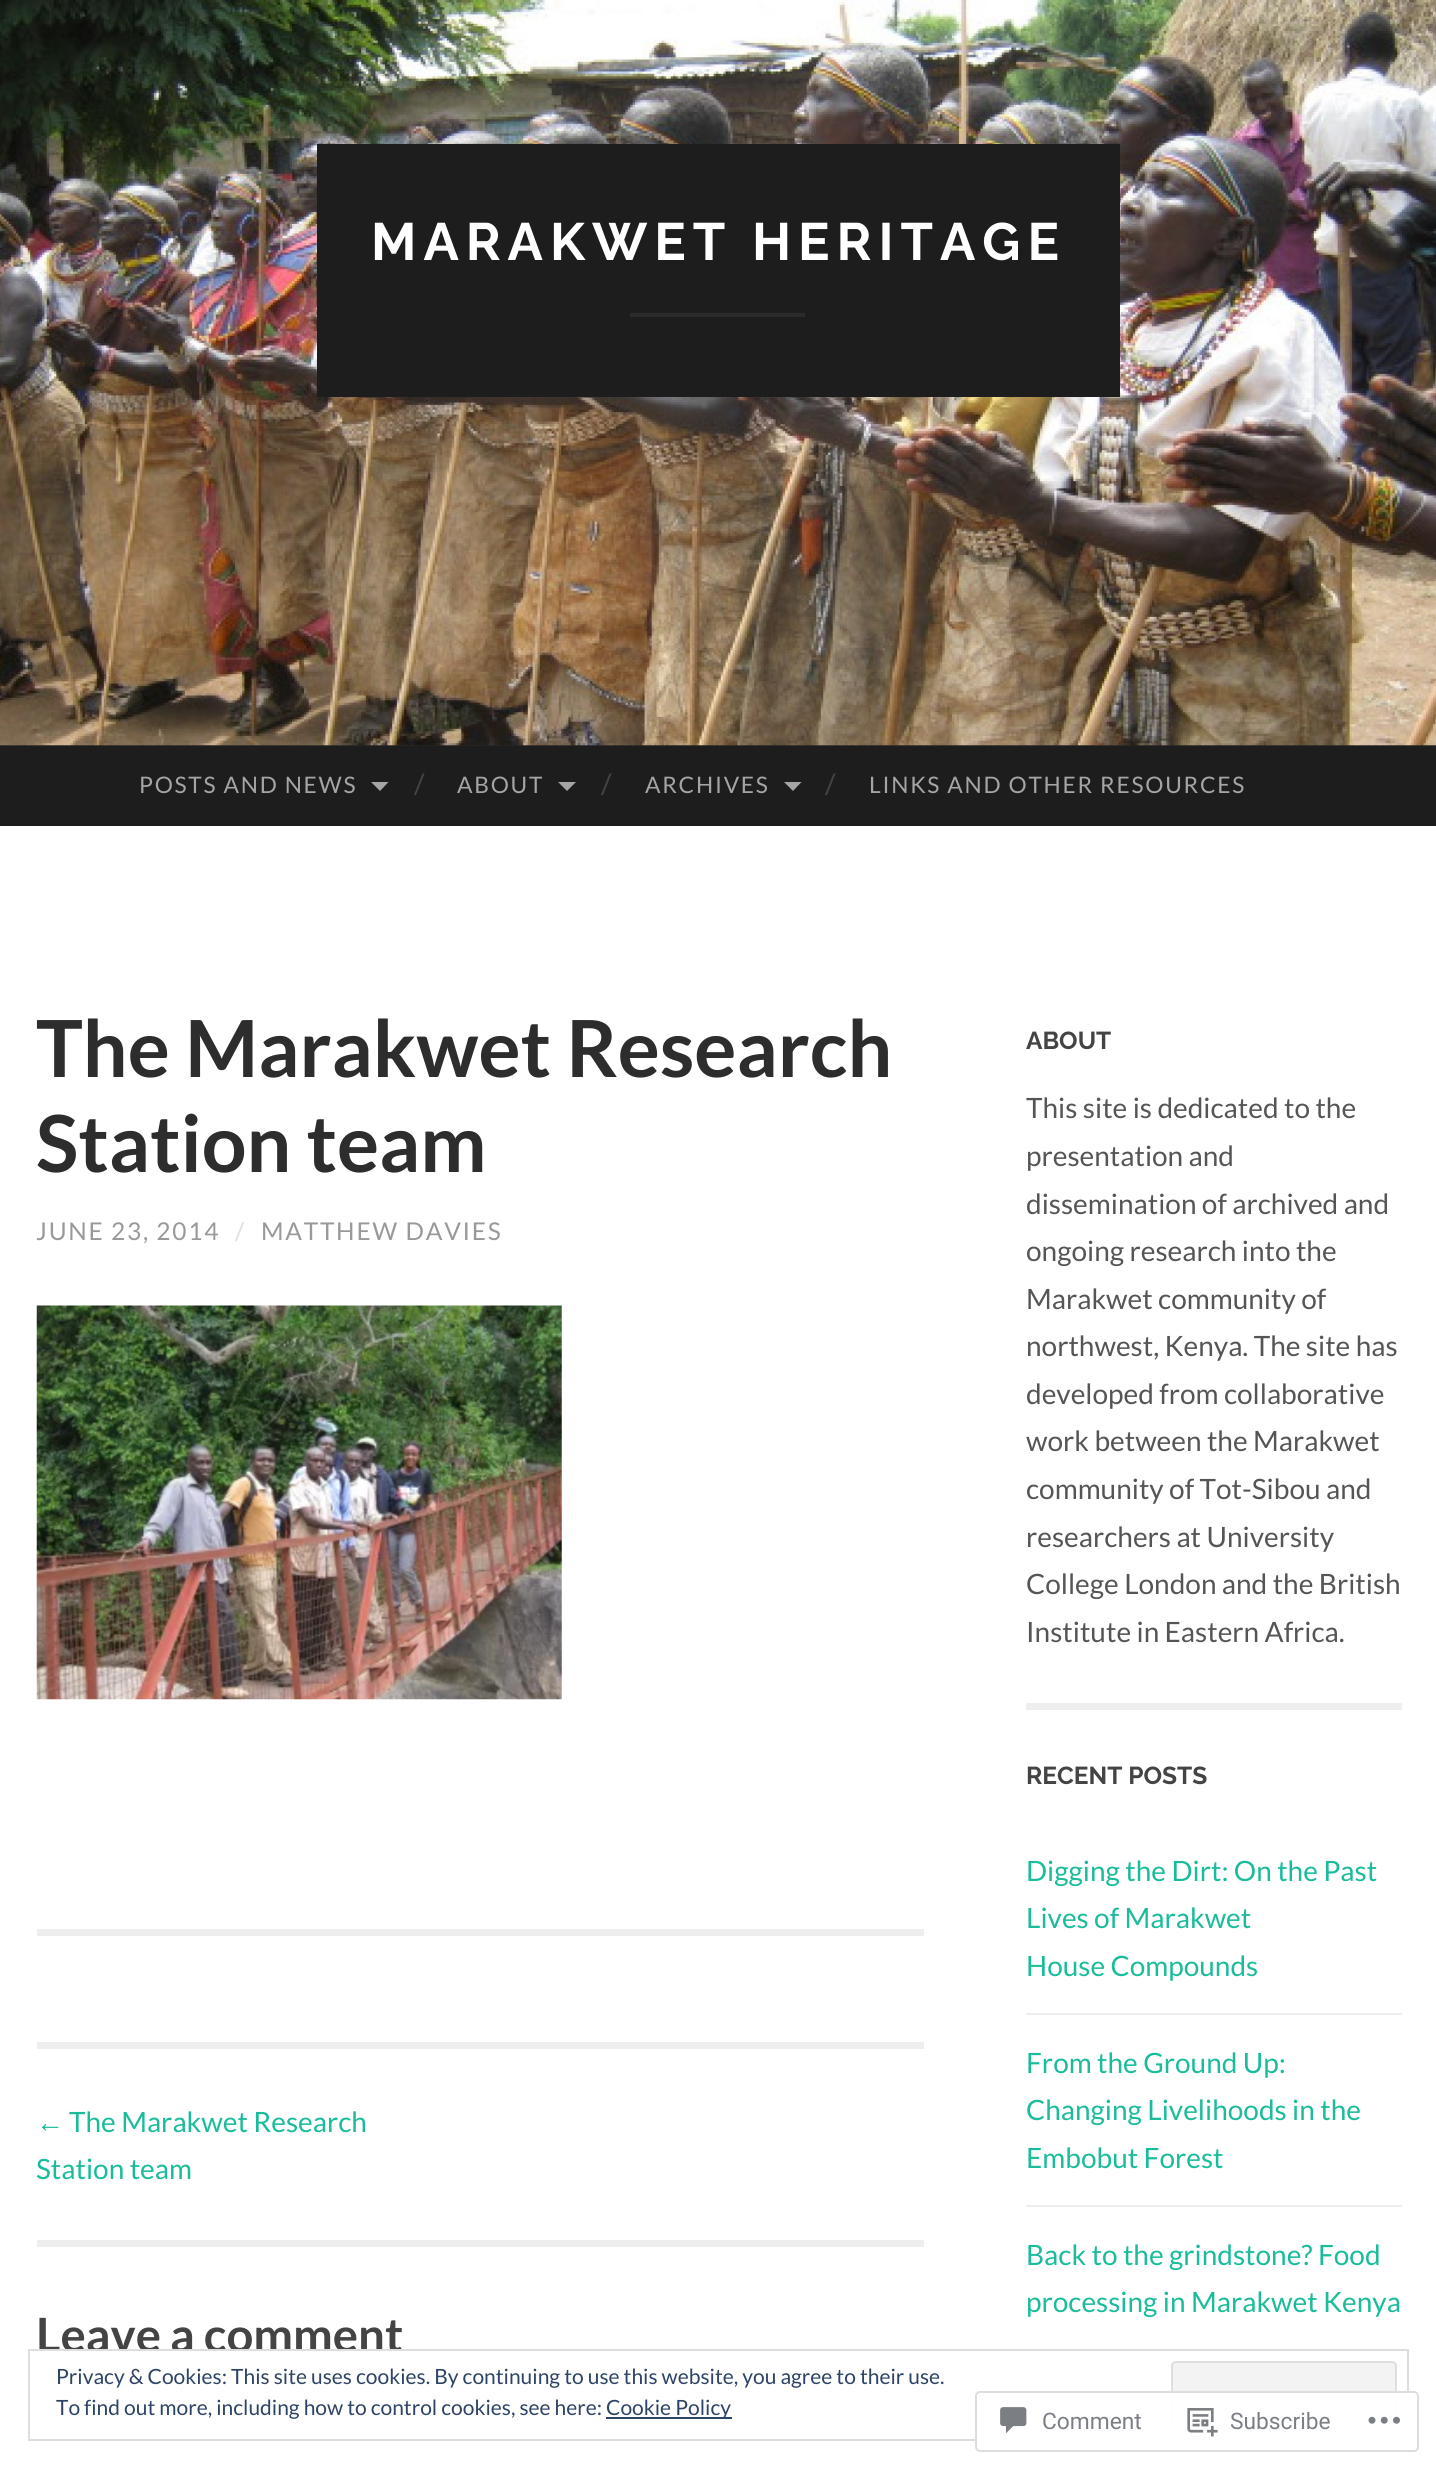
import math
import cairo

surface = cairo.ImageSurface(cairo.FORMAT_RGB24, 1436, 2468)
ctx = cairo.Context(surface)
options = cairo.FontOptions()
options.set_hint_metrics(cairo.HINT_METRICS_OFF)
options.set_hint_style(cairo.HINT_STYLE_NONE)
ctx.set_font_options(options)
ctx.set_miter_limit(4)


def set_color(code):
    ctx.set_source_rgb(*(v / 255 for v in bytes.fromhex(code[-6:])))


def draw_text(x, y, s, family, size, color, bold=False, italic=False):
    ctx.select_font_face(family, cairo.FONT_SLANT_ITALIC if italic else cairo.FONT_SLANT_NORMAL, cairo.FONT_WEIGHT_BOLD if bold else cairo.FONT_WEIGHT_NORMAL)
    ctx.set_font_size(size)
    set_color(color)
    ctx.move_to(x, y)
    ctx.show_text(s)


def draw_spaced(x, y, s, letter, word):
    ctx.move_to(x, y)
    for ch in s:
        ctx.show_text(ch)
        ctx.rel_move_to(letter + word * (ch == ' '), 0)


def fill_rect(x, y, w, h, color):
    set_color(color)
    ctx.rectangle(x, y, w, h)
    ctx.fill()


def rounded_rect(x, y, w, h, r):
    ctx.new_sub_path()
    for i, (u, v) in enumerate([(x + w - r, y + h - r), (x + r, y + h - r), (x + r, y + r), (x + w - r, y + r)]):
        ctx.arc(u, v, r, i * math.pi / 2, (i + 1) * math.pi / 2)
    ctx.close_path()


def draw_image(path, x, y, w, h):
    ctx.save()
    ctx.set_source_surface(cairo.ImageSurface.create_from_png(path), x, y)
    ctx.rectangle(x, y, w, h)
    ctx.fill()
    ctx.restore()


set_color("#ffffff")
ctx.paint()
fill_rect(0, 745, 1436, 1, "#262626")
draw_image("assets/img1.png", 0, 0, 1436, 746)
fill_rect(317, 144, 803, 253, "#1d1d1d")
ctx.select_font_face("Raleway", cairo.FONT_SLANT_NORMAL, cairo.FONT_WEIGHT_BOLD)
ctx.set_font_size(52.5)
set_color("#ffffff")
draw_spaced(371, 260, "MARAKWET HERITAGE", 7, 0)
fill_rect(630, 313, 175, 4, "#2b2b2b")
fill_rect(0, 746, 1436, 80, "#1d1d1d")
ctx.select_font_face("Lato")
ctx.set_font_size(22.75)
set_color("#a5a5a5")
draw_spaced(139, 793, "POSTS AND NEWS", 1.75, 0)
ctx.new_path()
ctx.move_to(371, 782)
ctx.line_to(388.5, 782)
ctx.line_to(380, 791)
ctx.close_path()
ctx.fill()
draw_text(414, 794, "/", "Lato", 28, "#444444")
ctx.set_font_size(22.75)
set_color("#a5a5a5")
draw_spaced(457, 793, "ABOUT", 1.75, 0)
ctx.new_path()
ctx.move_to(558, 782)
ctx.line_to(576, 782)
ctx.line_to(567, 791)
ctx.close_path()
ctx.fill()
draw_text(601, 794, "/", "Lato", 28, "#444444")
ctx.set_font_size(22.75)
set_color("#a5a5a5")
draw_spaced(645, 793, "ARCHIVES", 1.75, 0)
ctx.new_path()
ctx.move_to(784, 782)
ctx.line_to(801.5, 782)
ctx.line_to(793, 791)
ctx.close_path()
ctx.fill()
draw_text(825, 794, "/", "Lato", 28, "#444444")
ctx.set_font_size(22.75)
set_color("#a5a5a5")
draw_spaced(869, 793, "LINKS AND OTHER RESOURCES", 1.75, 0)
fill_rect(37, 1929, 887, 7, "#eeeeee")
draw_text(36, 1077, "The Marakwet Research", "Lato", 78.75, "#2d2d2d", bold=True)
draw_text(36, 1172, "Station team", "Lato", 78.75, "#2d2d2d", bold=True)
ctx.select_font_face("Lato")
ctx.set_font_size(24.5)
set_color("#999999")
draw_spaced(36, 1240, "JUNE 23, 2014", 1.75, 0)
set_color("#dddddd")
draw_spaced(235, 1240, "/", 1.75, 0)
set_color("#999999")
draw_spaced(261, 1240, "MATTHEW DAVIES", 1.75, 0)
draw_image("assets/img2.png", 36, 1305, 526, 395)
fill_rect(37, 2042, 887, 7, "#eeeeee")
fill_rect(37, 2240, 887, 7, "#eeeeee")
draw_text(36, 2132, "←", "Liberation Sans", 28, "#1abc9c")
draw_text(69, 2132, "The Marakwet Research", "Lato", 28, "#1abc9c")
draw_text(36, 2179, "Station team", "Lato", 28, "#1abc9c")
draw_text(36, 2352, "Leave a comment", "Lato", 47.25, "#444444", bold=True)
fill_rect(1026, 1703, 376, 7, "#eeeeee")
draw_text(1026, 1049, "ABOUT", "Raleway", 24.5, "#444444", bold=True)
draw_text(1026, 1118, "This site is dedicated to the", "Lato", 28, "#555555")
draw_text(1026, 1166, "presentation and", "Lato", 28, "#555555")
draw_text(1026, 1214, "dissemination of archived and", "Lato", 28, "#555555")
draw_text(1026, 1261, "ongoing research into the", "Lato", 28, "#555555")
draw_text(1026, 1309, "Marakwet community of", "Lato", 28, "#555555")
draw_text(1026, 1356, "northwest, Kenya. The site has", "Lato", 28, "#555555")
draw_text(1026, 1404, "developed from collaborative", "Lato", 28, "#555555")
draw_text(1026, 1451, "work between the Marakwet", "Lato", 28, "#555555")
draw_text(1026, 1499, "community of Tot-Sibou and", "Lato", 28, "#555555")
draw_text(1026, 1547, "researchers at University", "Lato", 28, "#555555")
draw_text(1026, 1594, "College London and the British", "Lato", 28, "#555555")
draw_text(1026, 1642, "Institute in Eastern Africa.", "Lato", 28, "#555555")
draw_text(1026, 1784, "RECENT POSTS", "Raleway", 24.5, "#444444", bold=True)
draw_text(1026, 1881, "Digging the Dirt: On the Past", "Lato", 28, "#1abc9c")
draw_text(1026, 1928, "Lives of Marakwet", "Lato", 28, "#1abc9c")
draw_text(1026, 1976, "House Compounds", "Lato", 28, "#1abc9c")
fill_rect(1026, 2013, 376, 2, "#eeeeee")
draw_text(1026, 2073, "From the Ground Up:", "Lato", 28, "#1abc9c")
draw_text(1026, 2120, "Changing Livelihoods in the", "Lato", 28, "#1abc9c")
draw_text(1026, 2168, "Embobut Forest", "Lato", 28, "#1abc9c")
fill_rect(1026, 2205, 376, 2, "#eeeeee")
draw_text(1026, 2265, "Back to the grindstone? Food", "Lato", 28, "#1abc9c")
draw_text(1026, 2312, "processing in Marakwet Kenya", "Lato", 28, "#1abc9c")
fill_rect(39, 2351, 362, 2, "#ffffff")
ctx.rectangle(29, 2350, 1379, 90)
set_color("#dedede")
ctx.stroke()
draw_text(56, 2384, "Privacy & Cookies: This site uses cookies. By continuing to use this website, you agree to their use.", "Lato", 21, "#2e4467")
set_color("#f3f3f3")
rounded_rect(1172, 2362, 224, 66, 4)
ctx.fill_preserve()
set_color("#dedede")
ctx.stroke()
draw_text(56, 2415, "To find out more, including how to control cookies, see here:", "Lato", 21, "#2e4467")
fill_rect(606, 2417, 126, 2, "#2e4467")
draw_text(606, 2415, "Cookie Policy", "Lato", 21, "#2e4467")
ctx.set_source_rgba(1, 1, 1, 0.98)
rounded_rect(975, 2391, 444, 61, 5)
ctx.fill()
rounded_rect(976, 2392, 442, 59, 4)
ctx.set_source_rgba(0.863, 0.863, 0.871, 0.98)
ctx.stroke()
draw_image("assets/img3.png", 1000, 2407, 27, 27)
draw_text(1042, 2429, "Comment", "Roboto", 22.75, "#7b7f85")
draw_image("assets/img4.png", 1187, 2408, 31, 29)
draw_text(1230, 2429, "Subscribe", "Roboto", 22.75, "#7b7f85")
draw_image("assets/img5.png", 1368, 2416, 32, 8)
surface.write_to_png("output.png")
